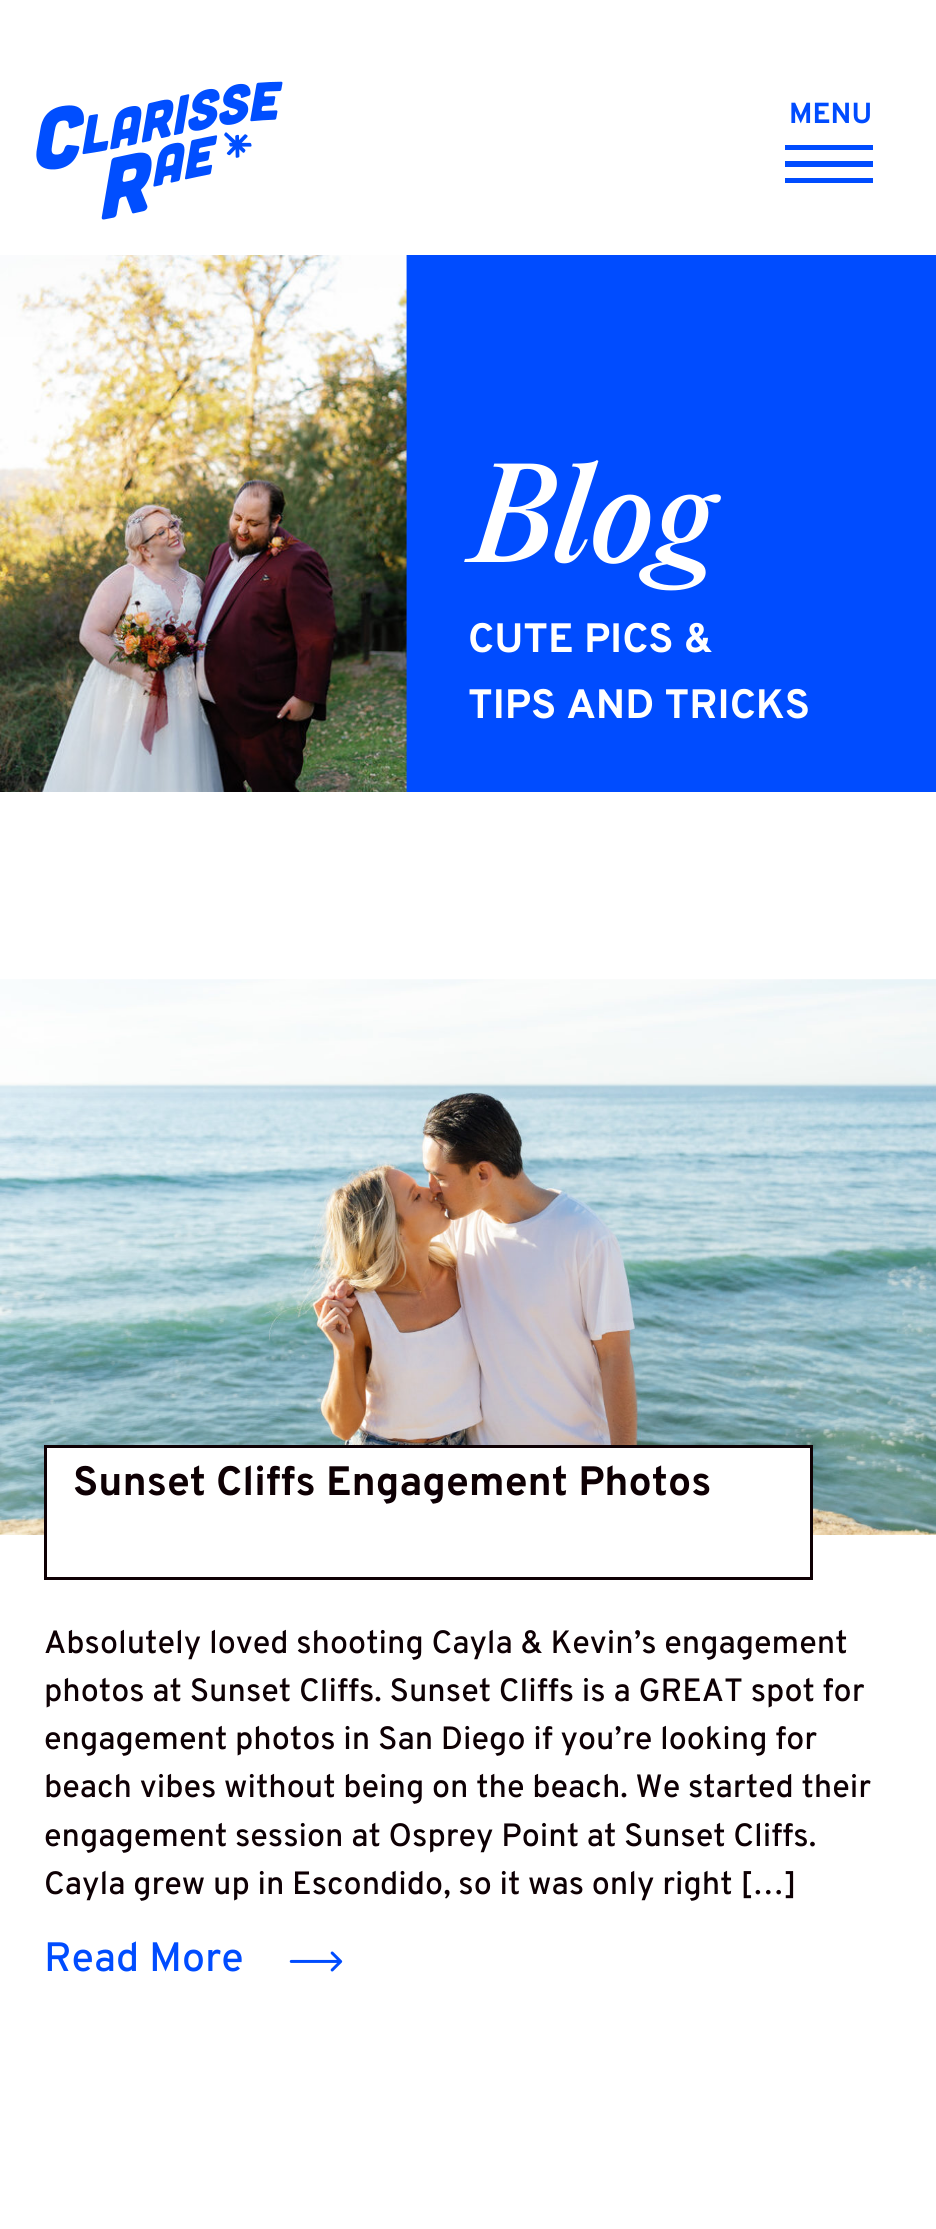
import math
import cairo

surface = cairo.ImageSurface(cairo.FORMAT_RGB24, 936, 2229)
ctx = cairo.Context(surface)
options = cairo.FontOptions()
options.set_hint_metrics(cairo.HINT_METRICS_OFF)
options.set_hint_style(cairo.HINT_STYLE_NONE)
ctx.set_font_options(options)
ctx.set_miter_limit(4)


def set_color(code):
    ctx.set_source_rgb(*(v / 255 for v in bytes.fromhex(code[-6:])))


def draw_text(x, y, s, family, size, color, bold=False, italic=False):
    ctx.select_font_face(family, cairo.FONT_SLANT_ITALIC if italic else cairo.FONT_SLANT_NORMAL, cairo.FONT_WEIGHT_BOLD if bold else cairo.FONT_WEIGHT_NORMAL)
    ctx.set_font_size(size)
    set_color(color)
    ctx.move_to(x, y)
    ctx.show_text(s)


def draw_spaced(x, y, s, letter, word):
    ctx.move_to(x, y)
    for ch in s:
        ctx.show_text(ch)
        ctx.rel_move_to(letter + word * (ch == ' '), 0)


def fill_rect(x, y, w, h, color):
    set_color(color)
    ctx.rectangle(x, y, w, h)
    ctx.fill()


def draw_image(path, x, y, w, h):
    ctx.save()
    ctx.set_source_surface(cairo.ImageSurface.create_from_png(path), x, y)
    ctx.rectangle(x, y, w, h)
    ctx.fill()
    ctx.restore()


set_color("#ffffff")
ctx.paint()
draw_image("assets/img1.png", 36, 81, 247, 139)
draw_text(789, 123, "MENU", "Overpass", 29, "#004cff", bold=True)
ctx.new_path()
ctx.move_to(785, 145)
ctx.line_to(873, 145)
ctx.line_to(873, 150)
ctx.line_to(785, 150)
ctx.close_path()
ctx.move_to(785, 161)
ctx.line_to(873, 161)
ctx.line_to(873, 167)
ctx.line_to(785, 167)
ctx.close_path()
ctx.move_to(785, 178)
ctx.line_to(873, 178)
ctx.line_to(873, 183)
ctx.line_to(785, 183)
ctx.close_path()
ctx.fill()
fill_rect(406, 255, 530, 537, "#004cff")
draw_image("assets/img2.png", 0, 255, 407, 537)
ctx.select_font_face("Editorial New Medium", cairo.FONT_SLANT_ITALIC)
ctx.set_font_size(123)
set_color("#ffffff")
draw_spaced(471, 562, "Blog", 1, 0)
draw_text(468, 652, "CUTE PICS &", "Overpass", 41, "#ffffff", bold=True)
draw_text(468, 718, "TIPS AND TRICKS", "Overpass", 41, "#ffffff", bold=True)
draw_image("assets/img3.png", 0, 979, 936, 556)
fill_rect(47, 1448, 763, 87, "#ffffff")
ctx.rectangle(45.5, 1446.5, 766, 132)
set_color("#0e0004")
ctx.set_line_width(3)
ctx.stroke()
draw_text(73, 1495, "Sunset Cliffs Engagement Photos", "Overpass", 41, "#0e0004", bold=True)
draw_text(44, 1653, "Absolutely loved shooting Cayla & Kevin’s engagement", "Overpass Medium", 32.2, "#0e0004")
draw_text(44, 1701, "photos at Sunset Cliffs. Sunset Cliffs is a GREAT spot for", "Overpass Medium", 32.2, "#0e0004")
draw_text(44, 1749, "engagement photos in San Diego if you’re looking for", "Overpass Medium", 32.2, "#0e0004")
draw_text(44, 1797, "beach vibes without being on the beach. We started their", "Overpass Medium", 32.2, "#0e0004")
draw_text(44, 1846, "engagement session at Osprey Point at Sunset Cliffs.", "Overpass Medium", 32.2, "#0e0004")
draw_text(44, 1894, "Cayla grew up in Escondido, so it was only right […]", "Overpass Medium", 32.2, "#0e0004")
draw_text(44, 1971, "Read More", "Overpass Medium", 41, "#004cff")
draw_image("assets/img4.png", 289, 1951, 54, 21)
surface.write_to_png("output.png")
